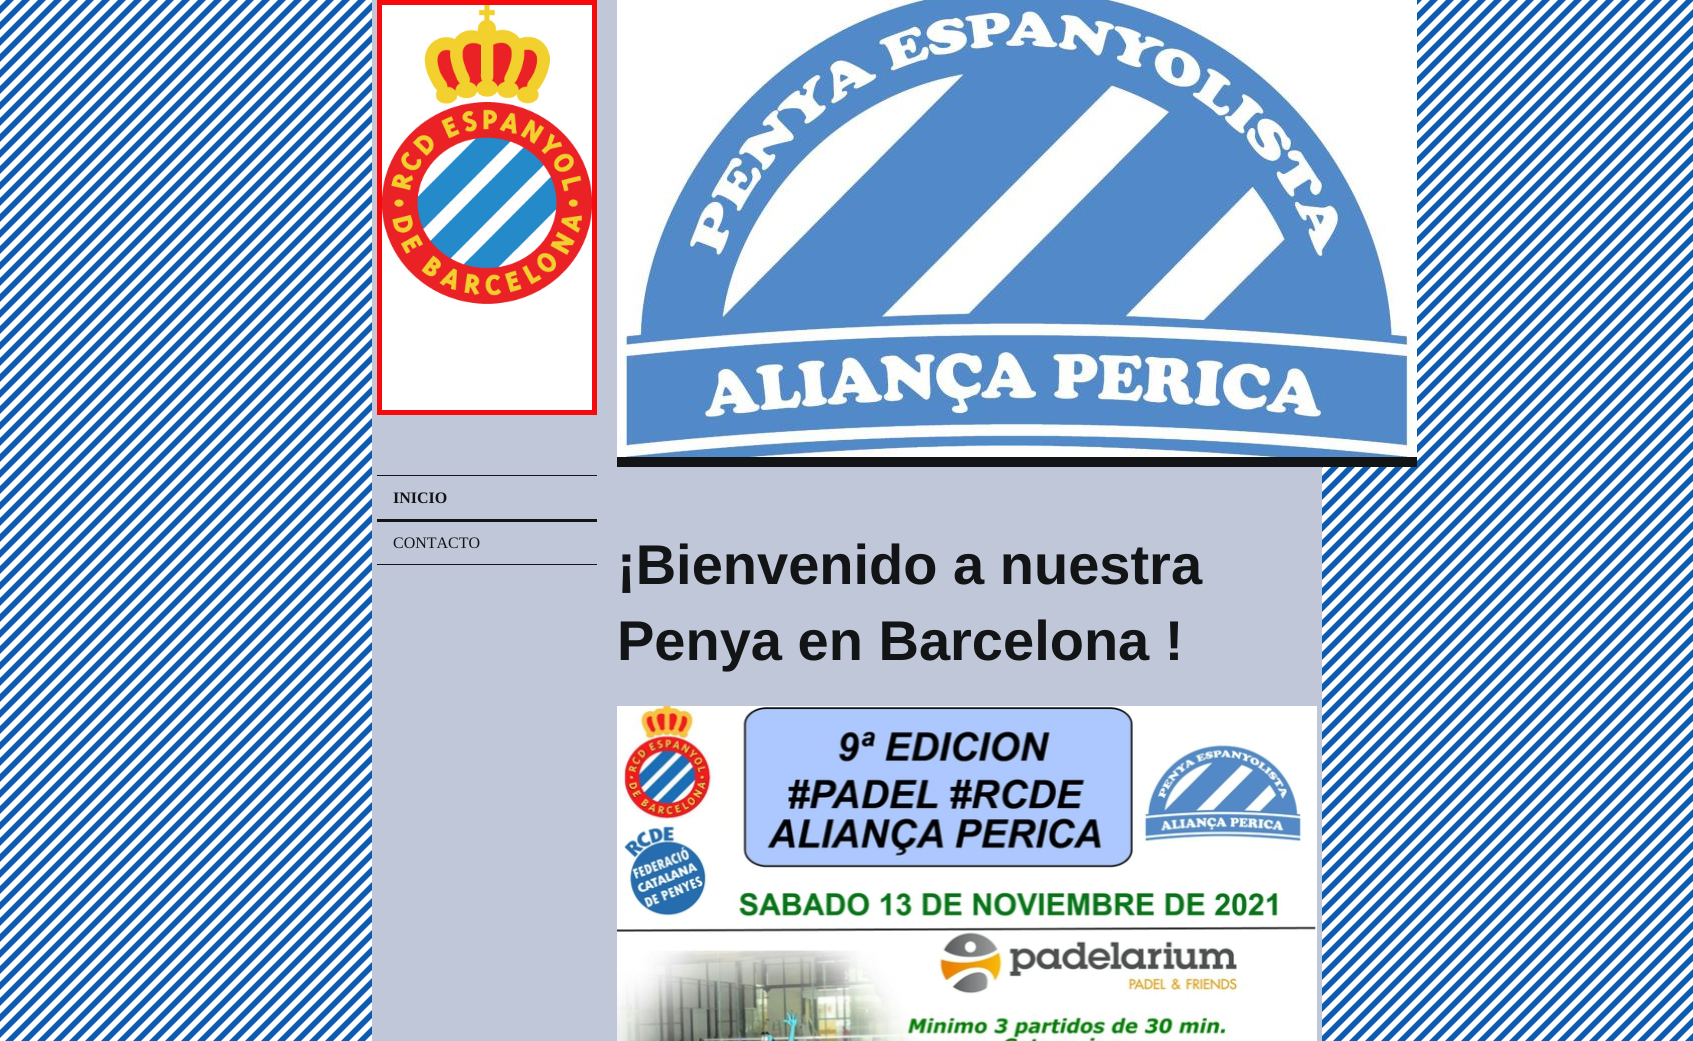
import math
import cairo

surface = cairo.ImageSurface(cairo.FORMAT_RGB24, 1693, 1041)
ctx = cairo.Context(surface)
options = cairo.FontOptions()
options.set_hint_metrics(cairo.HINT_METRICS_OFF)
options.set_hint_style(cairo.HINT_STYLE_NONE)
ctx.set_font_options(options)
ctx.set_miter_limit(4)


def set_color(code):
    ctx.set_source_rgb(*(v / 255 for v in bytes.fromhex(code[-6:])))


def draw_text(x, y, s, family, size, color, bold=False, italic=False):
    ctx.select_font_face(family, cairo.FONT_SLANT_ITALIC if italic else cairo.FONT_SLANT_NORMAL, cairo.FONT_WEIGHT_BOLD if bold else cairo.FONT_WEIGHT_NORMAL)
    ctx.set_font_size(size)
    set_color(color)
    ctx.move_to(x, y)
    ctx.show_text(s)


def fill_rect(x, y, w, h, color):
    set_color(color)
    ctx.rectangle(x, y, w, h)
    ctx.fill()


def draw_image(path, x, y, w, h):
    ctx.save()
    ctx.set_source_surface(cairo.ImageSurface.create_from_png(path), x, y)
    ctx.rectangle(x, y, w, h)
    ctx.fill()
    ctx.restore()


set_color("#0d5cb1")
ctx.paint()
draw_image("assets/img1.png", 0, 0, 1693, 1041)
fill_rect(372, 0, 950, 1041, "#bfc7d9")
fill_rect(377, 0, 220, 415, "#f60a0b")
draw_image("assets/img2.png", 382, 5, 210, 405)
fill_rect(377, 475, 220, 1, "#131416")
fill_rect(377, 519, 220, 3, "#131416")
draw_text(393, 503, "INICIO", "Liberation Serif", 16, "#131416", bold=True)
fill_rect(377, 564, 220, 1, "#131416")
draw_text(393, 548, "CONTACTO", "Liberation Serif", 16, "#131416")
fill_rect(617, 457, 800, 10, "#131416")
draw_image("assets/img3.png", 617, 0, 800, 457)
draw_text(617, 584, "¡Bienvenido a nuestra", "Liberation Sans", 56, "#131416", bold=True)
draw_text(617, 660, "Penya en Barcelona !", "Liberation Sans", 56, "#131416", bold=True)
draw_image("assets/img4.png", 617, 706, 700, 335)
surface.write_to_png("output.png")
